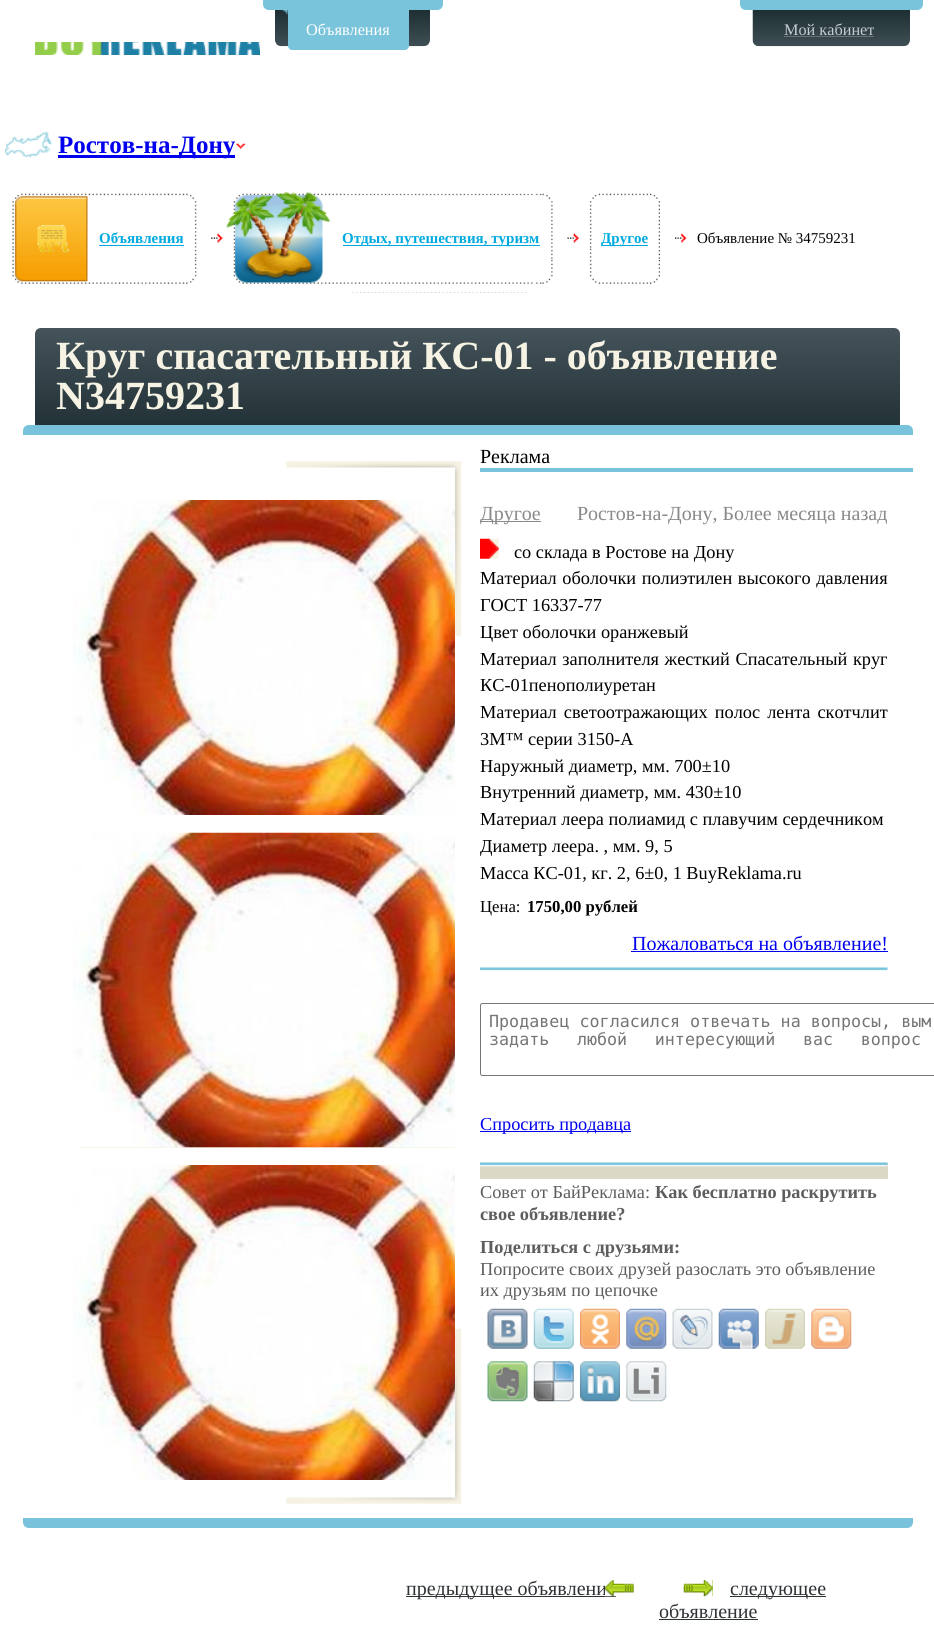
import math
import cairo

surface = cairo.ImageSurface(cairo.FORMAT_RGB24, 934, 1637)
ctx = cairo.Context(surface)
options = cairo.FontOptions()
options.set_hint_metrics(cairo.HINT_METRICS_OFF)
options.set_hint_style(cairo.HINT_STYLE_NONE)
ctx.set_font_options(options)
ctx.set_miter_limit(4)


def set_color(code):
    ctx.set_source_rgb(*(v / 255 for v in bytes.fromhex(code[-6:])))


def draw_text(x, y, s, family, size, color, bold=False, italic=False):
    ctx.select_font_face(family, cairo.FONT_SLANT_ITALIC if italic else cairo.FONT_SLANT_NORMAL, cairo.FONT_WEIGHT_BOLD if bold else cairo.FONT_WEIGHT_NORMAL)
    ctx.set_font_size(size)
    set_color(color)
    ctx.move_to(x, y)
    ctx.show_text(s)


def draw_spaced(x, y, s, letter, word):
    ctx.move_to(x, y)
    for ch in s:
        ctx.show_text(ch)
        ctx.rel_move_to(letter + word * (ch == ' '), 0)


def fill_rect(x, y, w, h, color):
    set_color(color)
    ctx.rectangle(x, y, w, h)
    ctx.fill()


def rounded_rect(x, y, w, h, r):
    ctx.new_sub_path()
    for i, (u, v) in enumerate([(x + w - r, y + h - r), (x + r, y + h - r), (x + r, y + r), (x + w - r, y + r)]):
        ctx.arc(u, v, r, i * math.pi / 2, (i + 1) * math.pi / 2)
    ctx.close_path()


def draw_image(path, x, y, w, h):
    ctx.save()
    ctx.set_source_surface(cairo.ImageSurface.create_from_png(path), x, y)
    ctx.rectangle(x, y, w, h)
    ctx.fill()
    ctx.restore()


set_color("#ffffff")
ctx.paint()
set_color("#79c4db")
ctx.new_path()
ctx.move_to(263, 0)
ctx.line_to(443, 0)
ctx.line_to(443, 4)
ctx.curve_to(443, 7.5, 440.5, 10, 437, 10)
ctx.line_to(269, 10)
ctx.curve_to(265.5, 10, 263, 7.5, 263, 4)
ctx.close_path()
ctx.fill()
draw_image("assets/img1.png", 275, 10, 155, 37)
ctx.new_path()
ctx.move_to(288, 10)
ctx.line_to(409, 10)
ctx.line_to(409, 46)
ctx.curve_to(409, 48, 407, 50, 405, 50)
ctx.line_to(292, 50)
ctx.curve_to(290, 50, 288, 48, 288, 46)
ctx.close_path()
ctx.fill()
draw_image("assets/img2.png", 282, 10, 6, 5)
draw_text(306, 35, "Объявления", "Liberation Serif", 16.25, "#ffffff")
draw_image("assets/img3.png", 4, 131, 48, 27)
fill_rect(58, 155, 177, 3, "#0000ee")
draw_text(58, 153, "Ростов-на-Дону", "Liberation Serif", 25, "#0000ee", bold=True)
draw_image("assets/img4.png", 236, 143, 10, 6)
draw_image("assets/img5.png", 12, 193, 86, 91)
draw_image("assets/img6.png", 14, 196, 74, 86)
draw_image("assets/img7.png", 99, 193, 86, 91)
draw_text(99, 243, "Объявления", "Liberation Serif", 15, "#00aae0", bold=True)
fill_rect(99, 245, 85, 1, "#00aae0")
draw_image("assets/img8.png", 186, 193, 11, 91)
draw_image("assets/img9.png", 211, 233, 12, 10)
draw_image("assets/img10.png", 233, 193, 109, 91)
draw_image("assets/img11.png", 226, 191, 105, 92)
draw_image("assets/img12.png", 343, 193, 199, 100)
fill_rect(343, 245, 197, 1, "#00aae0")
draw_text(342, 243, "Отдых, путешествия, туризм", "Liberation Serif", 15, "#00aae0", bold=True)
draw_image("assets/img13.png", 542, 193, 11, 91)
draw_image("assets/img14.png", 567, 233, 12, 10)
draw_image("assets/img15.png", 589, 193, 12, 91)
draw_image("assets/img16.png", 602, 193, 47, 91)
fill_rect(601, 245, 47, 1, "#00aae0")
draw_text(601, 243, "Другое", "Liberation Serif", 15, "#00aae0", bold=True)
draw_image("assets/img17.png", 650, 193, 10, 91)
draw_image("assets/img18.png", 675, 233, 12, 10)
draw_text(697, 243, "Объявление № 34759231", "Liberation Serif", 15, "#000000")
set_color("#79c4db")
ctx.new_path()
ctx.move_to(740, 0)
ctx.line_to(923, 0)
ctx.line_to(923, 4)
ctx.curve_to(923, 7.5, 920.5, 10, 917, 10)
ctx.line_to(746, 10)
ctx.curve_to(742.5, 10, 740, 7.5, 740, 4)
ctx.close_path()
ctx.fill()
draw_image("assets/img19.png", 752, 10, 158, 37)
draw_text(784, 35, "Мой кабинет", "Liberation Serif", 16.25, "#c3ccd1")
fill_rect(784, 36, 90, 1, "#667379")
draw_image("assets/img20.png", 35, 42, 225, 13)
gradient = cairo.LinearGradient(468, 327, 468, 425)
gradient.add_color_stop_rgba(0, 0.271, 0.329, 0.353, 1)
gradient.add_color_stop_rgba(1, 0.133, 0.196, 0.216, 1)
ctx.set_source(gradient)
ctx.new_path()
ctx.move_to(41, 328)
ctx.line_to(894, 328)
ctx.curve_to(897.5, 328, 900, 330.5, 900, 334)
ctx.line_to(900, 425)
ctx.line_to(35, 425)
ctx.line_to(35, 334)
ctx.curve_to(35, 330.5, 37.5, 328, 41, 328)
ctx.close_path()
ctx.fill()
draw_text(56, 369, "Круг спасательный КС-01 - объявление", "Liberation Serif", 40, "#f6f3e4", bold=True)
draw_text(56, 409, "N34759231", "Liberation Serif", 40, "#f6f3e4", bold=True)
set_color("#78c3db")
ctx.new_path()
ctx.move_to(29, 425)
ctx.line_to(907, 425)
ctx.curve_to(910.5, 425, 913, 427.5, 913, 431)
ctx.line_to(913, 435)
ctx.line_to(23, 435)
ctx.line_to(23, 431)
ctx.curve_to(23, 427.5, 25.5, 425, 29, 425)
ctx.close_path()
ctx.fill()
draw_image("assets/img21.png", 286, 461, 176, 176)
set_color("#f6f3e4")
ctx.new_path()
ctx.move_to(83, 500)
ctx.line_to(455, 500)
ctx.line_to(455, 815)
ctx.line_to(83, 815)
ctx.curve_to(77.5, 815, 73, 810.5, 73, 805)
ctx.line_to(73, 510)
ctx.curve_to(73, 504.5, 77.5, 500, 83, 500)
ctx.close_path()
ctx.fill()
draw_image("assets/img22.png", 73, 500, 382, 315)
ctx.new_path()
ctx.move_to(83, 833)
ctx.line_to(455, 833)
ctx.line_to(455, 1148)
ctx.line_to(83, 1148)
ctx.curve_to(77.5, 1148, 73, 1143.5, 73, 1138)
ctx.line_to(73, 843)
ctx.curve_to(73, 837.5, 77.5, 833, 83, 833)
ctx.close_path()
ctx.fill()
draw_image("assets/img23.png", 73, 832, 382, 316)
draw_image("assets/img25.png", 286, 1328, 176, 176)
ctx.new_path()
ctx.move_to(83, 1165)
ctx.line_to(455, 1165)
ctx.line_to(455, 1480)
ctx.line_to(83, 1480)
ctx.curve_to(77.5, 1480, 73, 1475.5, 73, 1470)
ctx.line_to(73, 1175)
ctx.curve_to(73, 1169.5, 77.5, 1165, 83, 1165)
ctx.close_path()
ctx.fill()
draw_image("assets/img24.png", 73, 1165, 382, 315)
fill_rect(480, 468, 433, 4, "#79c4db")
draw_text(480, 463, "Реклама", "Liberation Serif", 20, "#000000")
fill_rect(480, 521, 61, 1, "#898989")
draw_text(480, 520, "Другое", "Liberation Serif", 20, "#898989")
draw_text(577, 520, "Ростов-на-Дону, Более месяца назад", "Liberation Serif", 20, "#898989")
draw_image("assets/img26.png", 480, 538, 19, 21)
draw_text(514, 558, "со склада в Ростове на Дону", "Liberation Serif", 18.3, "#000000")
draw_spaced(480, 584, "Материал оболочки полиэтилен высокого давления", 0, 1)
draw_text(480, 611, "ГОСТ 16337-77", "Liberation Serif", 18.3, "#000000")
draw_text(480, 638, "Цвет оболочки оранжевый", "Liberation Serif", 18.3, "#000000")
draw_spaced(480, 665, "Материал заполнителя жесткий Спасательный круг", 0, 1)
draw_text(480, 691, "КС-01пенополиуретан", "Liberation Serif", 18.3, "#000000")
draw_spaced(480, 718, "Материал светоотражающих полос лента скотчлит", 0, 2.5)
draw_text(480, 745, "3M™ серии 3150-А", "Liberation Serif", 18.3, "#000000")
draw_text(480, 772, "Наружный диаметр, мм. 700±10", "Liberation Serif", 18.3, "#000000")
draw_text(480, 798, "Внутренний диаметр, мм. 430±10", "Liberation Serif", 18.3, "#000000")
draw_text(480, 825, "Материал леера полиамид с плавучим сердечником", "Liberation Serif", 18.3, "#000000")
draw_text(480, 852, "Диаметр леера. , мм. 9, 5", "Liberation Serif", 18.3, "#000000")
draw_text(480, 879, "Масса КС-01, кг. 2, 6±0, 1 BuyReklama.ru", "Liberation Serif", 18.3, "#000000")
draw_text(480, 912, "Цена:", "Liberation Serif", 16.7, "#000000")
draw_text(527, 912, "1750,00 рублей", "Liberation Serif", 16.7, "#000000", bold=True)
draw_text(632, 950, "Пожаловаться на объявление!", "Liberation Serif", 20, "#0000ee")
fill_rect(631, 951, 257, 1, "#0000ee")
draw_image("assets/img27.png", 480, 967, 408, 4)
rounded_rect(480.5, 1003.5, 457, 72, 2)
set_color("#767676")
ctx.set_line_width(1)
ctx.stroke()
draw_text(489, 1027, "Продавец согласился отвечать на вопросы, вым", "DejaVu Sans Mono", 16.7, "#757575")
draw_spaced(489, 1045, "задать любой интересующий вас вопрос", 0, 17.5)
fill_rect(480, 1131, 151, 1, "#0000ee")
draw_text(480, 1130, "Спросить продавца", "Liberation Serif", 18.3, "#0000ee")
fill_rect(480, 1163, 408, 16, "#dbd8c5")
draw_image("assets/img28.png", 480, 1162, 408, 5)
draw_text(480, 1198, "Совет от БайРеклама:", "Liberation Serif", 18.3, "#5d5d5d")
draw_text(655, 1198, "Как бесплатно раскрутить", "Liberation Serif", 18.3, "#5d5d5d", bold=True)
draw_text(480, 1220, "свое объявление?", "Liberation Serif", 18.3, "#5d5d5d", bold=True)
draw_text(480, 1253, "Поделиться с друзьями:", "Liberation Serif", 18.3, "#5d5d5d", bold=True)
draw_text(480, 1275, "Попросите своих друзей разослать это объявление", "Liberation Serif", 18.3, "#5d5d5d")
draw_text(480, 1296, "их друзьям по цепочке", "Liberation Serif", 18.3, "#5d5d5d")
draw_image("assets/img29.png", 487, 1308, 41, 41)
draw_image("assets/img30.png", 533, 1308, 41, 41)
draw_image("assets/img31.png", 580, 1308, 40, 41)
draw_image("assets/img32.png", 626, 1308, 41, 41)
draw_image("assets/img33.png", 672, 1308, 41, 41)
draw_image("assets/img34.png", 718, 1308, 41, 41)
draw_image("assets/img35.png", 765, 1308, 40, 41)
draw_image("assets/img36.png", 811, 1308, 41, 41)
draw_image("assets/img37.png", 487, 1361, 41, 41)
draw_image("assets/img38.png", 533, 1361, 41, 41)
draw_image("assets/img39.png", 580, 1361, 40, 41)
draw_image("assets/img40.png", 626, 1361, 41, 41)
set_color("#78c3db")
ctx.new_path()
ctx.move_to(23, 1518)
ctx.line_to(913, 1518)
ctx.line_to(913, 1522)
ctx.curve_to(913, 1525.5, 910.5, 1528, 907, 1528)
ctx.line_to(29, 1528)
ctx.curve_to(25.5, 1528, 23, 1525.5, 23, 1522)
ctx.close_path()
ctx.fill()
fill_rect(406, 1596, 210, 1, "#2d3235")
draw_text(406, 1595, "предыдущее объявлени", "Liberation Serif", 20, "#2d3235")
draw_image("assets/img41.png", 605, 1580, 29, 17)
fill_rect(712, 1580, 1, 16, "#94c72c")
draw_image("assets/img42.png", 683, 1580, 30, 17)
fill_rect(730, 1596, 96, 1, "#2d3235")
draw_text(730, 1595, "следующее", "Liberation Serif", 20, "#2d3235")
draw_text(659, 1618, "объявление", "Liberation Serif", 20, "#2d3235")
fill_rect(659, 1619, 99, 1, "#2d3235")
surface.write_to_png("output.png")
